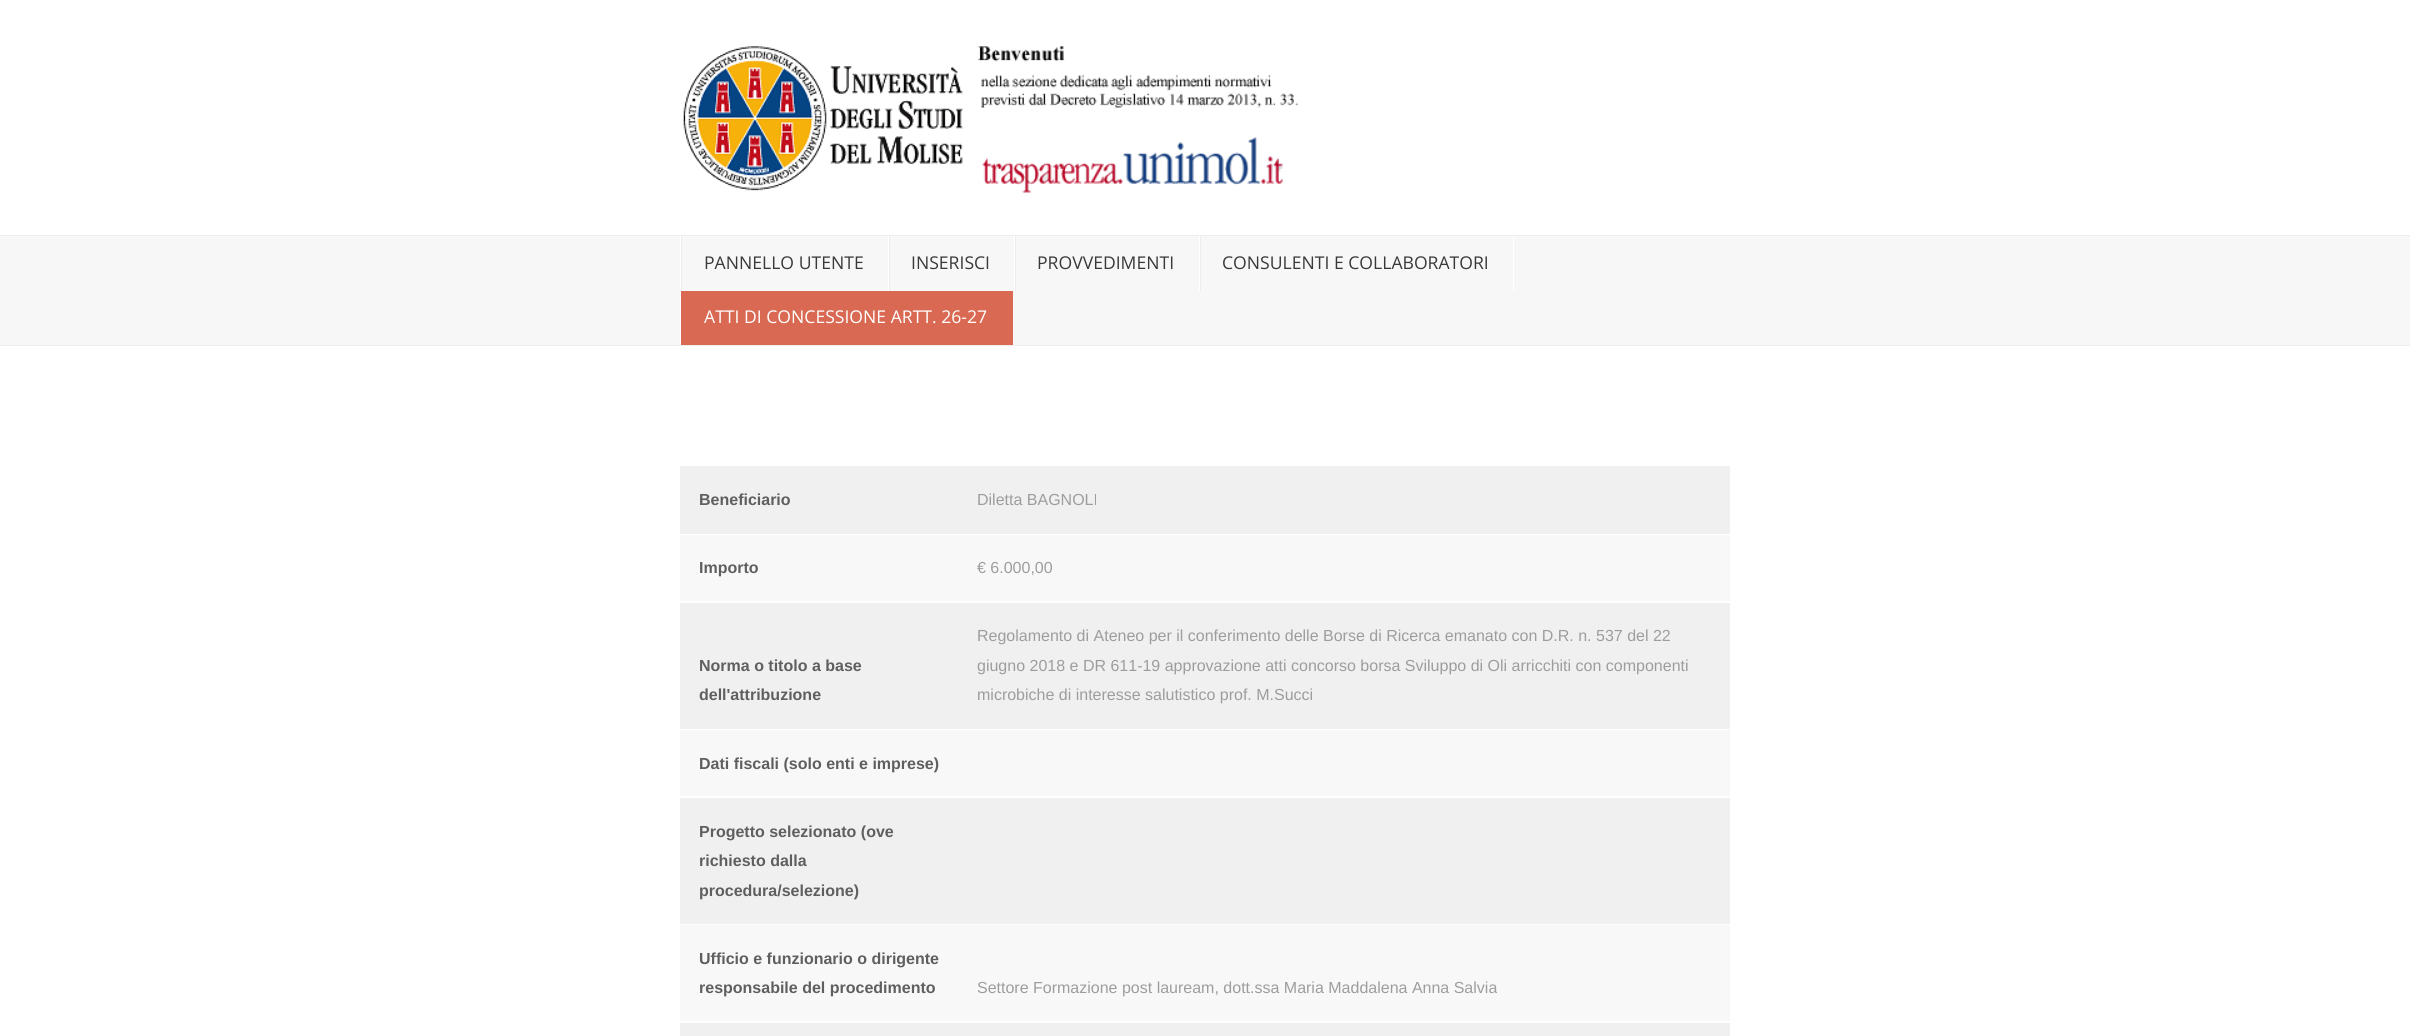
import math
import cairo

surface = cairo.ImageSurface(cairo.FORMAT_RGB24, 2410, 1036)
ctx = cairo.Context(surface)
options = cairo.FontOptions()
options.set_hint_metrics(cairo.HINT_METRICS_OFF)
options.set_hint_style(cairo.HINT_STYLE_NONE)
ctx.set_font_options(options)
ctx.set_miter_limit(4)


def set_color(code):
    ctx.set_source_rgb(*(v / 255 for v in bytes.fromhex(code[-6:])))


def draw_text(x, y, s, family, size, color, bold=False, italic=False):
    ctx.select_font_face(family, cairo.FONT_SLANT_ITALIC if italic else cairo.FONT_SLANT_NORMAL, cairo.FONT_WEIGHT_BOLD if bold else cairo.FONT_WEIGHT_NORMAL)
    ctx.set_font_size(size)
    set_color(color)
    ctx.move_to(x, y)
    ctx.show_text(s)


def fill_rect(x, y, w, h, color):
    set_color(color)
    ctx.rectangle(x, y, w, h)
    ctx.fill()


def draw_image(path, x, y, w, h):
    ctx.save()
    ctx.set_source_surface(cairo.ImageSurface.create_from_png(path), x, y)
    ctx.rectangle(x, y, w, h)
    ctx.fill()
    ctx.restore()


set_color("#ffffff")
ctx.paint()
draw_image("assets/img1.png", 683, 46, 615, 147)
fill_rect(0, 236, 2410, 109, "#f8f7f7")
fill_rect(0, 235, 2410, 1, "#eeeded")
fill_rect(0, 345, 2410, 1, "#eeeded")
fill_rect(680, 236, 1, 109, "#ffffff")
fill_rect(888, 236, 1, 55, "#ffffff")
fill_rect(681, 236, 1, 55, "#eeeded")
draw_text(704, 269, "PANNELLO UTENTE", "Open Sans", 17.6, "#393939")
fill_rect(1014, 236, 1, 55, "#ffffff")
fill_rect(889, 236, 1, 55, "#eeeded")
draw_text(911, 269, "INSERISCI", "Open Sans", 17.6, "#393939")
fill_rect(1199, 236, 1, 55, "#ffffff")
fill_rect(1015, 236, 1, 55, "#eeeded")
draw_text(1037, 269, "PROVVEDIMENTI", "Open Sans", 17.6, "#393939")
fill_rect(1513, 236, 1, 55, "#ffffff")
fill_rect(1200, 236, 1, 55, "#eeeded")
draw_text(1222, 269, "CONSULENTI E COLLABORATORI", "Open Sans", 17.6, "#393939")
fill_rect(681, 291, 332, 54, "#d96953")
draw_text(704, 323, "ATTI DI CONCESSIONE ARTT. 26-27", "Open Sans", 17.6, "#ffffff")
fill_rect(680, 466, 1050, 68, "#f1f0f0")
draw_text(699, 505, "Beneficiario", "Liberation Sans", 16, "#5f5f5f", bold=True)
draw_text(977, 505, "Diletta BAGNOLI", "Liberation Sans", 16, "#9d9d9d")
fill_rect(680, 535, 1050, 66, "#f8f8f8")
draw_text(699, 573, "Importo", "Liberation Sans", 16, "#5f5f5f", bold=True)
draw_text(977, 573, "€ 6.000,00", "Liberation Sans", 16, "#9d9d9d")
fill_rect(680, 603, 1050, 126, "#f1f0f0")
draw_text(699, 671, "Norma o titolo a base", "Liberation Sans", 16, "#5f5f5f", bold=True)
draw_text(699, 700, "dell'attribuzione", "Liberation Sans", 16, "#5f5f5f", bold=True)
draw_text(977, 641, "Regolamento di Ateneo per il conferimento delle Borse di Ricerca emanato con D.R. n. 537 del 22", "Liberation Sans", 16, "#9d9d9d")
draw_text(977, 671, "giugno 2018 e DR 611-19 approvazione atti concorso borsa Sviluppo di Oli arricchiti con componenti", "Liberation Sans", 16, "#9d9d9d")
draw_text(977, 700, "microbiche di interesse salutistico prof. M.Succi", "Liberation Sans", 16, "#9d9d9d")
fill_rect(680, 730, 1050, 66, "#f8f8f8")
draw_text(699, 769, "Dati fiscali (solo enti e imprese)", "Liberation Sans", 16, "#5f5f5f", bold=True)
fill_rect(680, 798, 1050, 126, "#f1f0f0")
draw_text(699, 837, "Progetto selezionato (ove", "Liberation Sans", 16, "#5f5f5f", bold=True)
draw_text(699, 866, "richiesto dalla", "Liberation Sans", 16, "#5f5f5f", bold=True)
draw_text(699, 896, "procedura/selezione)", "Liberation Sans", 16, "#5f5f5f", bold=True)
fill_rect(680, 925, 1050, 96, "#f8f8f8")
draw_text(699, 964, "Ufficio e funzionario o dirigente", "Liberation Sans", 16, "#5f5f5f", bold=True)
draw_text(699, 993, "responsabile del procedimento", "Liberation Sans", 16, "#5f5f5f", bold=True)
draw_text(977, 993, "Settore Formazione post lauream, dott.ssa Maria Maddalena Anna Salvia", "Liberation Sans", 16, "#9d9d9d")
fill_rect(680, 1023, 1050, 13, "#f1f0f0")
surface.write_to_png("output.png")
